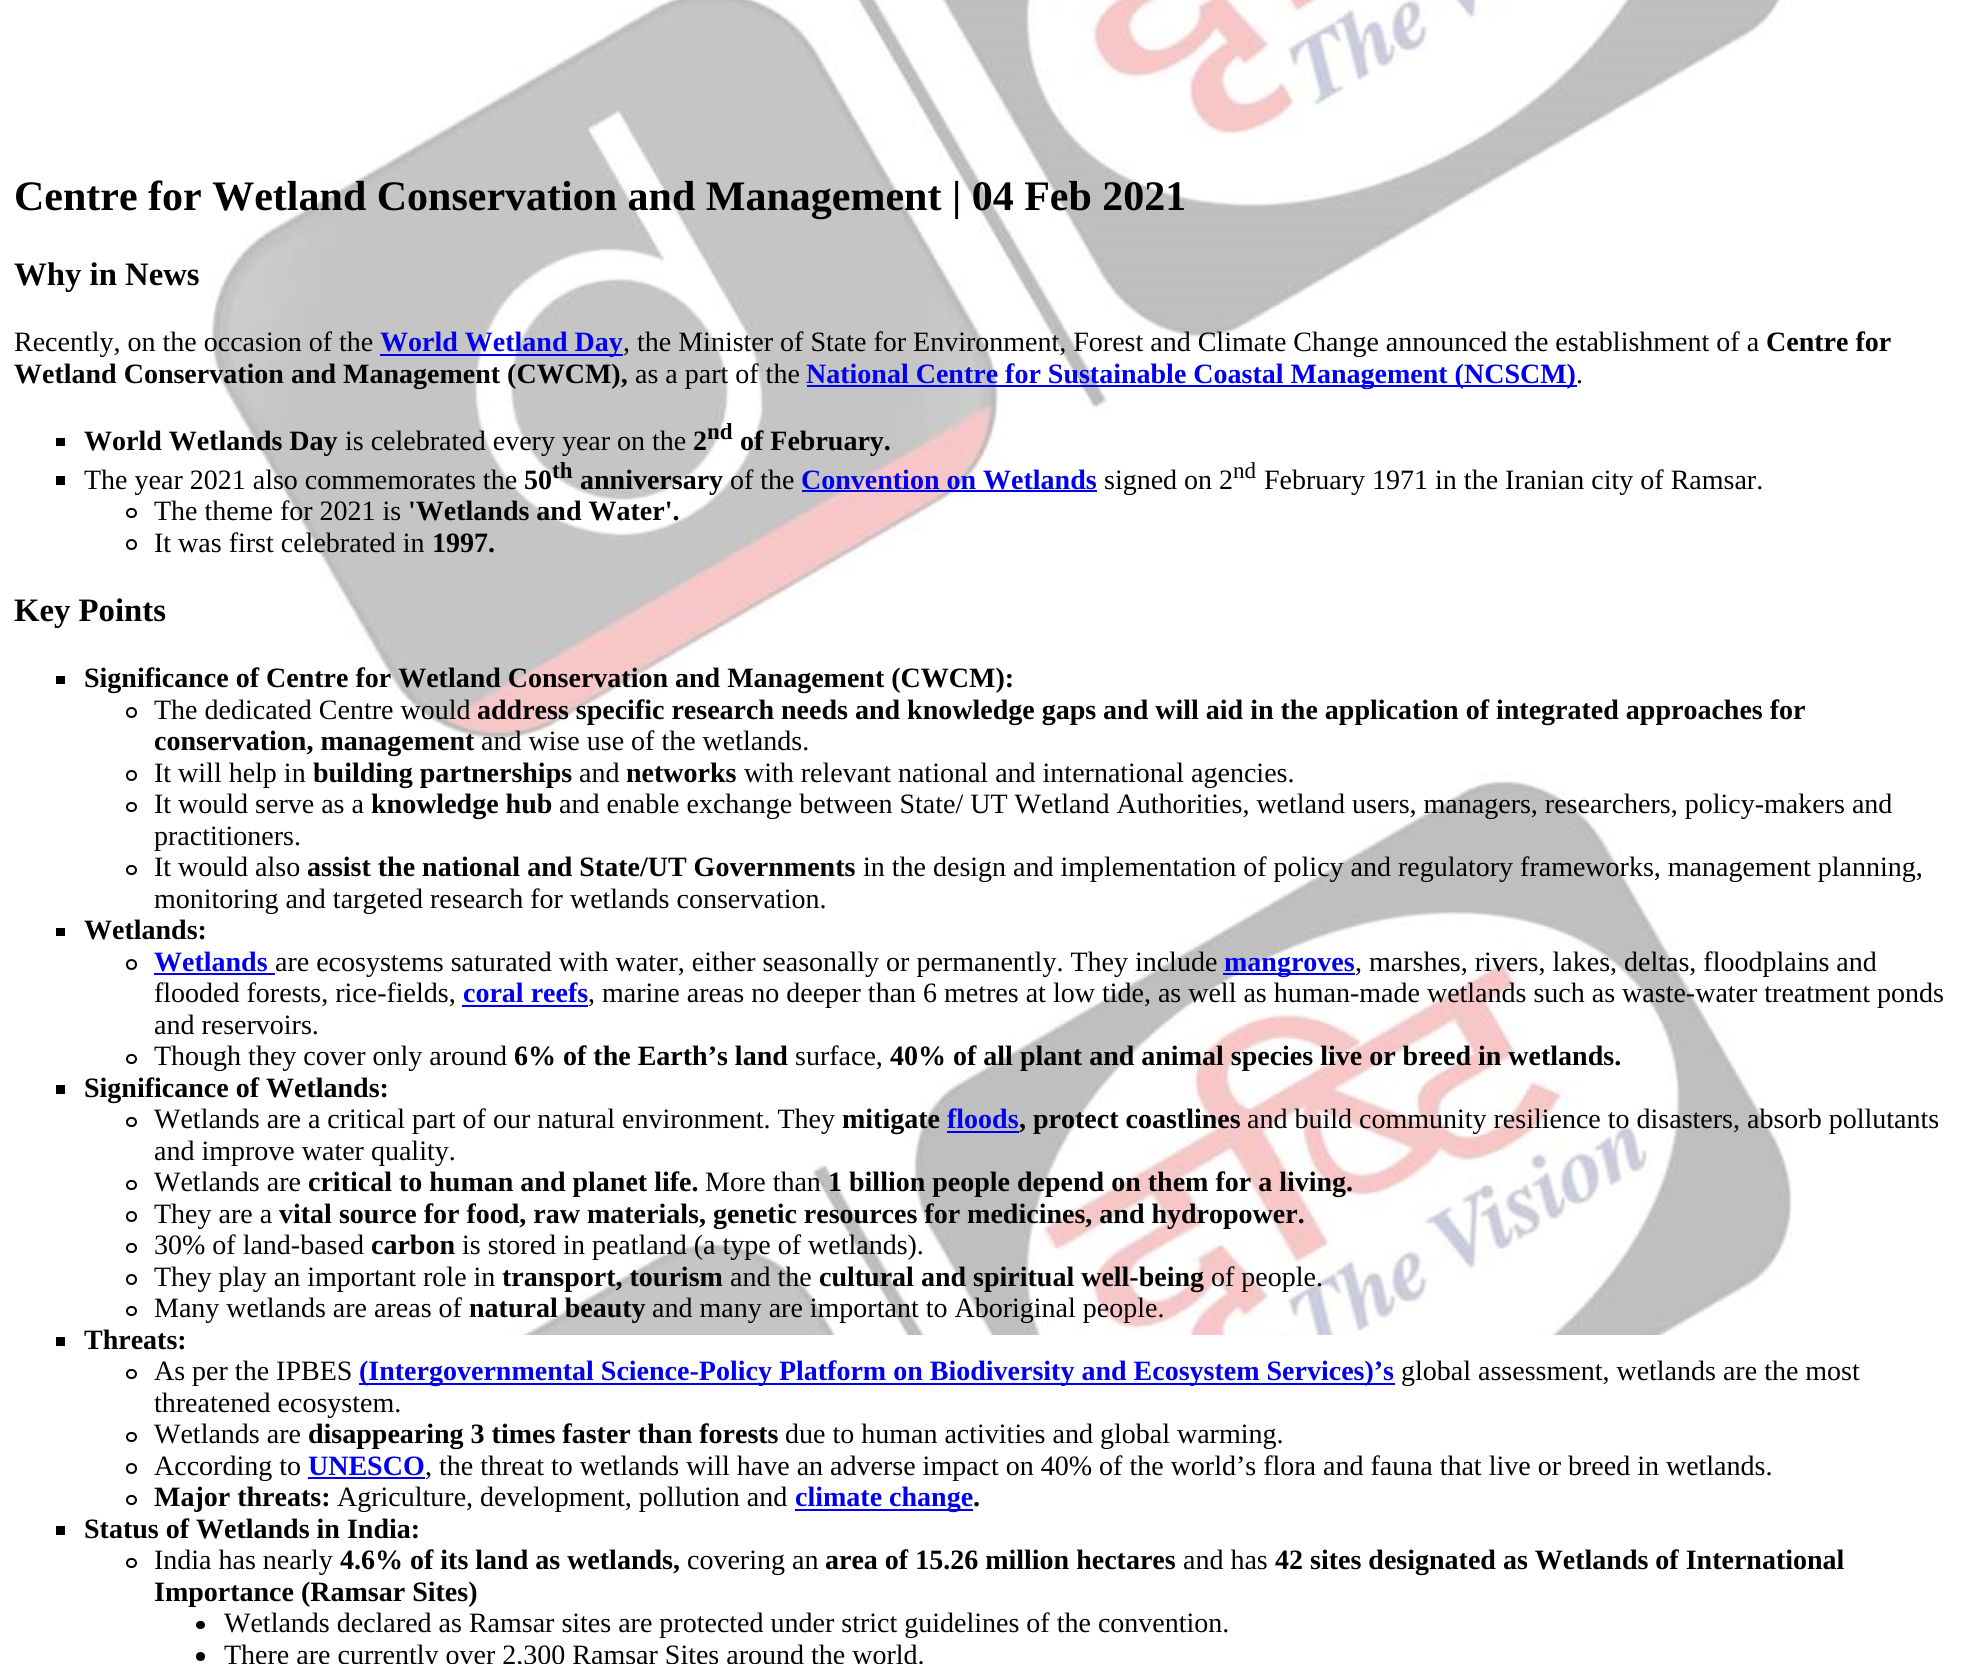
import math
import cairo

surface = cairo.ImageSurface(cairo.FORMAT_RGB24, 1963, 1664)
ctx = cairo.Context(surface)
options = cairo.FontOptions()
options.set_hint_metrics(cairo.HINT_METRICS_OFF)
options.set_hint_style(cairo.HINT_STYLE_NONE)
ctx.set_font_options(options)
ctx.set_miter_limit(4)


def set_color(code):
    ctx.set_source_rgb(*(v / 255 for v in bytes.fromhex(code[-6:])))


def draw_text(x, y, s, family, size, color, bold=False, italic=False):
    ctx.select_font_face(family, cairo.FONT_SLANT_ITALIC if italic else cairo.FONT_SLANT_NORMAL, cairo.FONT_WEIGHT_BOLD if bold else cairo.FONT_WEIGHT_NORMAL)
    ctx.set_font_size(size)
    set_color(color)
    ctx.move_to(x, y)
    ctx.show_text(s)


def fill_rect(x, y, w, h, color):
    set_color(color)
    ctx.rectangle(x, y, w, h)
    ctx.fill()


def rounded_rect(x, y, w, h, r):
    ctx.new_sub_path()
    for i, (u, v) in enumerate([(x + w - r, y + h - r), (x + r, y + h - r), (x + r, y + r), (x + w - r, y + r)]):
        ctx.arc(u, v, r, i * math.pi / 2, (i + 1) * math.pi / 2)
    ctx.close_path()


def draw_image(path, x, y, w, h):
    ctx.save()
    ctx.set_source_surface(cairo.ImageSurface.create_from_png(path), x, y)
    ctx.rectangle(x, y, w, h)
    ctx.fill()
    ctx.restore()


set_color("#ffffff")
ctx.paint()
draw_image("assets/img1.png", 210, 0, 1582, 1335)
draw_text(14, 210, "Centre for Wetland Conservation and Management | 04 Feb 2021", "Liberation Serif", 42, "#000000", bold=True)
draw_text(14, 285, "Why in News", "Liberation Serif", 32.75, "#000000", bold=True)
draw_text(14, 351, "Recently, on the occasion of the", "Liberation Serif", 28, "#000000")
fill_rect(380, 354, 243, 2, "#0000ee")
draw_text(380, 351, "World Wetland Day", "Liberation Serif", 28, "#0000ee", bold=True)
draw_text(623, 351, ", the Minister of State for Environment, Forest and Climate Change announced the establishment of a", "Liberation Serif", 28, "#000000")
draw_text(1766, 351, "Centre for", "Liberation Serif", 28, "#000000", bold=True)
draw_text(14, 383, "Wetland Conservation and Management (CWCM),", "Liberation Serif", 28, "#000000", bold=True)
draw_text(635, 383, "as a part of the", "Liberation Serif", 28, "#000000")
fill_rect(807, 385, 770, 2, "#0000ee")
draw_text(806, 383, "National Centre for Sustainable Coastal Management (NCSCM)", "Liberation Serif", 28, "#0000ee", bold=True)
draw_text(1576, 383, ".", "Liberation Serif", 28, "#000000")
fill_rect(56, 438, 9, 8, "#000000")
draw_text(84, 450, "World Wetlands Day", "Liberation Serif", 28, "#000000", bold=True)
draw_text(345, 450, "is celebrated every year on the", "Liberation Serif", 28, "#000000")
draw_text(693, 450, "2", "Liberation Serif", 28, "#000000", bold=True)
draw_text(707, 439, "nd", "Liberation Serif", 23, "#000000", bold=True)
draw_text(740, 450, "of February.", "Liberation Serif", 28, "#000000", bold=True)
fill_rect(56, 476, 9, 9, "#000000")
draw_text(84, 489, "The year 2021 also commemorates the", "Liberation Serif", 28, "#000000")
draw_text(524, 489, "50", "Liberation Serif", 28, "#000000", bold=True)
draw_text(552, 478, "th", "Liberation Serif", 23, "#000000", bold=True)
draw_text(580, 489, "anniversary", "Liberation Serif", 28, "#000000", bold=True)
draw_text(730, 489, "of the", "Liberation Serif", 28, "#000000")
draw_text(801, 489, "Convention on Wetlands", "Liberation Serif", 28, "#0000ee", bold=True)
fill_rect(802, 490, 295, 2, "#0000ee")
draw_text(1104, 489, "signed on 2", "Liberation Serif", 28, "#000000")
draw_text(1233, 478, "nd", "Liberation Serif", 23, "#000000")
draw_text(1264, 489, "February 1971 in the Iranian city of Ramsar.", "Liberation Serif", 28, "#000000")
rounded_rect(127, 509, 9, 8, 4)
ctx.stroke()
draw_text(154, 520, "The theme for 2021 is", "Liberation Serif", 28, "#000000")
draw_text(408, 520, "'Wetlands and Water'.", "Liberation Serif", 28, "#000000", bold=True)
ctx.new_path()
ctx.arc(131.5, 544.5, 4.5, 0, 2 * math.pi)
ctx.stroke()
draw_text(154, 552, "It was first celebrated in", "Liberation Serif", 28, "#000000")
draw_text(432, 552, "1997.", "Liberation Serif", 28, "#000000", bold=True)
draw_text(14, 621, "Key Points", "Liberation Serif", 32.75, "#000000", bold=True)
fill_rect(56, 676, 9, 8, "#000000")
draw_text(84, 687, "Significance of Centre for Wetland Conservation and Management (CWCM):", "Liberation Serif", 28, "#000000", bold=True)
ctx.new_path()
ctx.arc(131.5, 712.5, 4.5, 0, 2 * math.pi)
ctx.stroke()
draw_text(154, 719, "The dedicated Centre would", "Liberation Serif", 28, "#000000")
draw_text(477, 719, "address specific research needs and knowledge gaps and will aid in the application of integrated approaches for", "Liberation Serif", 28, "#000000", bold=True)
draw_text(154, 750, "conservation, management", "Liberation Serif", 28, "#000000", bold=True)
draw_text(481, 750, "and wise use of the wetlands.", "Liberation Serif", 28, "#000000")
ctx.new_path()
ctx.arc(131.5, 775.5, 4.5, 0, 2 * math.pi)
ctx.stroke()
draw_text(154, 782, "It will help in", "Liberation Serif", 28, "#000000")
draw_text(313, 782, "building partnerships", "Liberation Serif", 28, "#000000", bold=True)
draw_text(579, 782, "and", "Liberation Serif", 28, "#000000")
draw_text(626, 782, "networks", "Liberation Serif", 28, "#000000", bold=True)
draw_text(744, 782, "with relevant national and international agencies.", "Liberation Serif", 28, "#000000")
rounded_rect(127, 803, 9, 8, 4)
ctx.stroke()
draw_text(154, 813, "It would serve as a", "Liberation Serif", 28, "#000000")
draw_text(371, 813, "knowledge hub", "Liberation Serif", 28, "#000000", bold=True)
draw_text(559, 813, "and enable exchange between State/ UT Wetland Authorities, wetland users, managers, researchers, policy-makers and", "Liberation Serif", 28, "#000000")
draw_text(154, 845, "practitioners.", "Liberation Serif", 28, "#000000")
rounded_rect(127, 866, 9, 8, 4)
ctx.stroke()
draw_text(154, 876, "It would also", "Liberation Serif", 28, "#000000")
draw_text(307, 876, "assist the national and State/UT Governments", "Liberation Serif", 28, "#000000", bold=True)
draw_text(863, 876, "in the design and implementation of policy and regulatory frameworks, management planning,", "Liberation Serif", 28, "#000000")
draw_text(154, 908, "monitoring and targeted research for wetlands conservation.", "Liberation Serif", 28, "#000000")
fill_rect(56, 928, 9, 8, "#000000")
draw_text(84, 939, "Wetlands:", "Liberation Serif", 28, "#000000", bold=True)
ctx.new_path()
ctx.arc(131.5, 964.5, 4.5, 0, 2 * math.pi)
ctx.stroke()
draw_text(154, 971, "Wetlands", "Liberation Serif", 28, "#0000ee", bold=True)
fill_rect(154, 973, 121, 2, "#0000ee")
draw_text(275, 971, "are ecosystems saturated with water, either seasonally or permanently. They include", "Liberation Serif", 28, "#000000")
fill_rect(1223, 973, 132, 2, "#0000ee")
draw_text(1224, 971, "mangroves", "Liberation Serif", 28, "#0000ee", bold=True)
draw_text(1355, 971, ", marshes, rivers, lakes, deltas, floodplains and", "Liberation Serif", 28, "#000000")
draw_text(154, 1002, "flooded forests, rice-fields,", "Liberation Serif", 28, "#000000")
draw_text(463, 1002, "coral reefs", "Liberation Serif", 28, "#0000ee", bold=True)
fill_rect(462, 1005, 126, 2, "#0000ee")
draw_text(588, 1002, ", marine areas no deeper than 6 metres at low tide, as well as human-made wetlands such as waste-water treatment ponds", "Liberation Serif", 28, "#000000")
draw_text(154, 1034, "and reservoirs.", "Liberation Serif", 28, "#000000")
rounded_rect(127, 1055, 9, 8, 4)
ctx.stroke()
draw_text(154, 1065, "Though they cover only around", "Liberation Serif", 28, "#000000")
draw_text(514, 1065, "6% of the Earth’s land", "Liberation Serif", 28, "#000000", bold=True)
draw_text(795, 1065, "surface,", "Liberation Serif", 28, "#000000")
draw_text(890, 1065, "40% of all plant and animal species live or breed in wetlands.", "Liberation Serif", 28, "#000000", bold=True)
fill_rect(56, 1085, 9, 9, "#000000")
draw_text(84, 1097, "Significance of Wetlands:", "Liberation Serif", 28, "#000000", bold=True)
rounded_rect(127, 1118, 9, 8, 4)
ctx.stroke()
draw_text(154, 1128, "Wetlands are a critical part of our natural environment. They", "Liberation Serif", 28, "#000000")
draw_text(842, 1128, "mitigate", "Liberation Serif", 28, "#000000", bold=True)
draw_text(947, 1128, "floods", "Liberation Serif", 28, "#0000ee", bold=True)
fill_rect(947, 1131, 72, 2, "#0000ee")
draw_text(1019, 1128, ", protect coastlines", "Liberation Serif", 28, "#000000", bold=True)
draw_text(1247, 1128, "and build community resilience to disasters, absorb pollutants", "Liberation Serif", 28, "#000000")
draw_text(154, 1160, "and improve water quality.", "Liberation Serif", 28, "#000000")
rounded_rect(127, 1181, 9, 8, 4)
ctx.stroke()
draw_text(154, 1191, "Wetlands are", "Liberation Serif", 28, "#000000")
draw_text(308, 1191, "critical to human and planet life.", "Liberation Serif", 28, "#000000", bold=True)
draw_text(705, 1191, "More than", "Liberation Serif", 28, "#000000")
draw_text(828, 1191, "1 billion people depend on them for a living.", "Liberation Serif", 28, "#000000", bold=True)
ctx.new_path()
ctx.arc(131.5, 1216.5, 4.5, 0, 2 * math.pi)
ctx.stroke()
draw_text(154, 1223, "They are a", "Liberation Serif", 28, "#000000")
draw_text(279, 1223, "vital source for food, raw materials, genetic resources for medicines, and hydropower.", "Liberation Serif", 28, "#000000", bold=True)
rounded_rect(127, 1244, 9, 8, 4)
ctx.stroke()
draw_text(154, 1254, "30% of land-based", "Liberation Serif", 28, "#000000")
draw_text(371, 1254, "carbon", "Liberation Serif", 28, "#000000", bold=True)
draw_text(462, 1254, "is stored in peatland (a type of wetlands).", "Liberation Serif", 28, "#000000")
ctx.new_path()
ctx.arc(131.5, 1279.5, 4.5, 0, 2 * math.pi)
ctx.stroke()
draw_text(154, 1286, "They play an important role in", "Liberation Serif", 28, "#000000")
draw_text(502, 1286, "transport, tourism", "Liberation Serif", 28, "#000000", bold=True)
draw_text(730, 1286, "and the", "Liberation Serif", 28, "#000000")
draw_text(819, 1286, "cultural and spiritual well-being", "Liberation Serif", 28, "#000000", bold=True)
draw_text(1211, 1286, "of people.", "Liberation Serif", 28, "#000000")
rounded_rect(127, 1307, 9, 8, 4)
ctx.stroke()
draw_text(154, 1317, "Many wetlands are areas of", "Liberation Serif", 28, "#000000")
draw_text(469, 1317, "natural beauty", "Liberation Serif", 28, "#000000", bold=True)
draw_text(652, 1317, "and many are important to Aboriginal people.", "Liberation Serif", 28, "#000000")
fill_rect(56, 1337, 9, 9, "#000000")
draw_text(84, 1349, "Threats:", "Liberation Serif", 28, "#000000", bold=True)
rounded_rect(127, 1370, 9, 8, 4)
ctx.stroke()
draw_text(154, 1380, "As per the IPBES", "Liberation Serif", 28, "#000000")
fill_rect(359, 1383, 1036, 2, "#0000ee")
draw_text(359, 1380, "(Intergovernmental Science-Policy Platform on Biodiversity and Ecosystem Services)’s", "Liberation Serif", 28, "#0000ee", bold=True)
draw_text(1401, 1380, "global assessment, wetlands are the most", "Liberation Serif", 28, "#000000")
draw_text(154, 1412, "threatened ecosystem.", "Liberation Serif", 28, "#000000")
rounded_rect(127, 1433, 9, 8, 4)
ctx.stroke()
draw_text(154, 1443, "Wetlands are", "Liberation Serif", 28, "#000000")
draw_text(308, 1443, "disappearing 3 times faster than forests", "Liberation Serif", 28, "#000000", bold=True)
draw_text(785, 1443, "due to human activities and global warming.", "Liberation Serif", 28, "#000000")
ctx.new_path()
ctx.arc(131.5, 1468.5, 4.5, 0, 2 * math.pi)
ctx.stroke()
draw_text(154, 1475, "According to", "Liberation Serif", 28, "#000000")
draw_text(308, 1475, "UNESCO", "Liberation Serif", 28, "#0000ee", bold=True)
fill_rect(308, 1477, 117, 2, "#0000ee")
draw_text(425, 1475, ", the threat to wetlands will have an adverse impact on 40% of the world’s flora and fauna that live or breed in wetlands.", "Liberation Serif", 28, "#000000")
rounded_rect(127, 1496, 9, 8, 4)
ctx.stroke()
draw_text(154, 1506, "Major threats:", "Liberation Serif", 28, "#000000", bold=True)
draw_text(337, 1506, "Agriculture, development, pollution and", "Liberation Serif", 28, "#000000")
fill_rect(795, 1509, 178, 2, "#0000ee")
draw_text(795, 1506, "climate change", "Liberation Serif", 28, "#0000ee", bold=True)
draw_text(973, 1506, ".", "Liberation Serif", 28, "#000000", bold=True)
fill_rect(56, 1526, 9, 9, "#000000")
draw_text(84, 1538, "Status of Wetlands in India:", "Liberation Serif", 28, "#000000", bold=True)
rounded_rect(127, 1559, 9, 8, 4)
ctx.stroke()
draw_text(154, 1569, "India has nearly", "Liberation Serif", 28, "#000000")
draw_text(340, 1569, "4.6% of its land as wetlands,", "Liberation Serif", 28, "#000000", bold=True)
draw_text(687, 1569, "covering an", "Liberation Serif", 28, "#000000")
draw_text(825, 1569, "area of 15.26 million hectares", "Liberation Serif", 28, "#000000", bold=True)
draw_text(1183, 1569, "and has", "Liberation Serif", 28, "#000000")
draw_text(1275, 1569, "42 sites designated as Wetlands of International", "Liberation Serif", 28, "#000000", bold=True)
draw_text(154, 1601, "Importance (Ramsar Sites)", "Liberation Serif", 28, "#000000", bold=True)
rounded_rect(196, 1621, 9, 8, 4)
ctx.fill()
draw_text(224, 1632, "Wetlands declared as Ramsar sites are protected under strict guidelines of the convention.", "Liberation Serif", 28, "#000000")
ctx.new_path()
ctx.arc(200.5, 1656.5, 4.5, 0, 2 * math.pi)
ctx.fill()
draw_text(224, 1664, "There are currently over 2,300 Ramsar Sites around the world.", "Liberation Serif", 28, "#000000")
surface.write_to_png("output.png")
